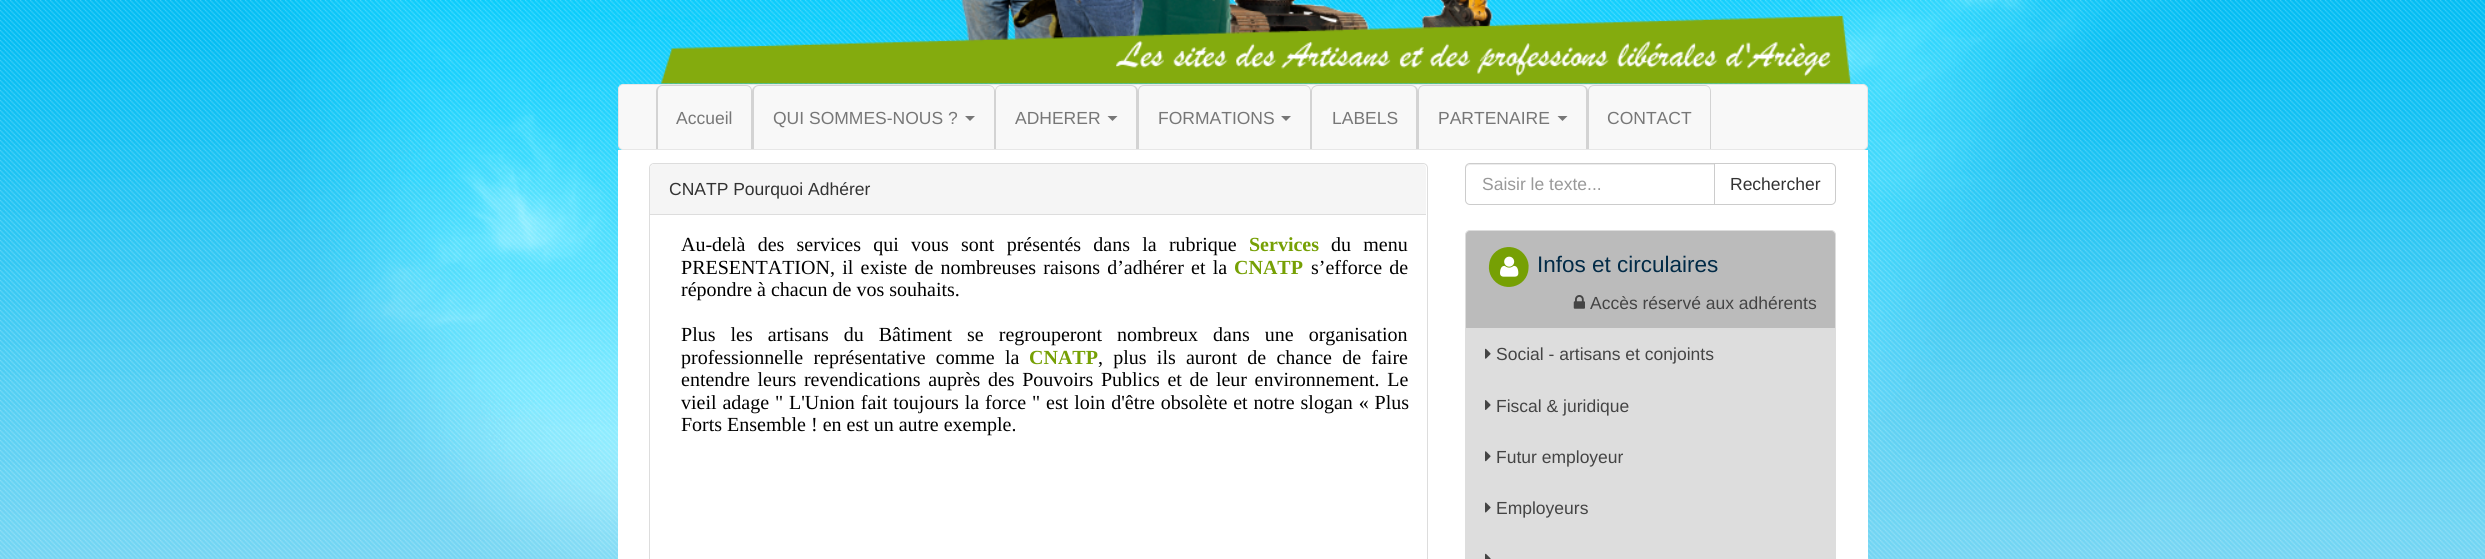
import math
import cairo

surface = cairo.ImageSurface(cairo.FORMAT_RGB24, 2485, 559)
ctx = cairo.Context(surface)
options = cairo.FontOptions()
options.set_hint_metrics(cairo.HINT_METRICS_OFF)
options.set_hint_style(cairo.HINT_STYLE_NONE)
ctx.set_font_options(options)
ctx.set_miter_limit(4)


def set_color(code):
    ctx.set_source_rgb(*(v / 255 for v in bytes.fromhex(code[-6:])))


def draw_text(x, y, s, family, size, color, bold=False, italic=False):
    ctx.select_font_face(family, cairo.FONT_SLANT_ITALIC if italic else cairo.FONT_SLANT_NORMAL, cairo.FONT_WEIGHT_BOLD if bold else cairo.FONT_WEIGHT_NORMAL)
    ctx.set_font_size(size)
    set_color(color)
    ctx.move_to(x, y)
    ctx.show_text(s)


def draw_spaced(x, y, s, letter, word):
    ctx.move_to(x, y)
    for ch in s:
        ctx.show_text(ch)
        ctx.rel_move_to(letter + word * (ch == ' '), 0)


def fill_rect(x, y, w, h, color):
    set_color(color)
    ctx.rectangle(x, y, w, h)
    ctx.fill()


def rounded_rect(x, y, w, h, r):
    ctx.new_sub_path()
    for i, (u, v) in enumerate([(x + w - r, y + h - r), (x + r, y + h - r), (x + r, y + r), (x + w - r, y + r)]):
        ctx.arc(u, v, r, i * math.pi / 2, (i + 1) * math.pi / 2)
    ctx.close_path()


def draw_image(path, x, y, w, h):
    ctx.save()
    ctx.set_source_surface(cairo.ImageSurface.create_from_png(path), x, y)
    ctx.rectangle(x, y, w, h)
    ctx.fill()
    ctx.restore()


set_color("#ffffff")
ctx.paint()
draw_image("assets/img1.png", 0, 0, 2485, 559)
draw_image("assets/img2.png", 661, 0, 1191, 84)
set_color("#f8f8f8")
rounded_rect(618.5, 84.5, 1249, 65, 4.5)
ctx.fill_preserve()
set_color("#e7e7e7")
ctx.set_line_width(1)
ctx.stroke()
set_color("#d3d3d3")
ctx.set_fill_rule(cairo.FILL_RULE_EVEN_ODD)
ctx.new_path()
ctx.move_to(662, 85)
ctx.line_to(746, 85)
ctx.curve_to(750, 85, 752, 88, 752, 91)
ctx.line_to(752, 149)
ctx.line_to(656, 149)
ctx.line_to(656, 91)
ctx.curve_to(656, 88, 659, 85, 662, 85)
ctx.close_path()
ctx.move_to(662, 86)
ctx.line_to(746, 86)
ctx.curve_to(749, 86, 751, 88, 751, 91)
ctx.line_to(751, 149)
ctx.line_to(658, 149)
ctx.line_to(658, 91)
ctx.curve_to(658, 88, 660, 86, 662, 86)
ctx.close_path()
ctx.fill()
draw_text(676, 124, "Accueil", "Liberation Sans", 17.5, "#777777")
set_color("#d3d3d3")
ctx.new_path()
ctx.move_to(759, 85)
ctx.line_to(989, 85)
ctx.curve_to(992, 85, 995, 88, 995, 91)
ctx.line_to(995, 149)
ctx.line_to(752, 149)
ctx.line_to(752, 91)
ctx.curve_to(752, 88, 755, 85, 759, 85)
ctx.close_path()
ctx.move_to(759, 86)
ctx.line_to(989, 86)
ctx.curve_to(992, 86, 994, 88, 994, 91)
ctx.line_to(994, 149)
ctx.line_to(754, 149)
ctx.line_to(754, 91)
ctx.curve_to(754, 88, 756, 86, 759, 86)
ctx.close_path()
ctx.fill()
draw_text(773, 124, "QUI SOMMES-NOUS ?", "Liberation Sans", 17.5, "#777777")
ctx.set_fill_rule(cairo.FILL_RULE_WINDING)
ctx.new_path()
ctx.move_to(965, 116)
ctx.line_to(975, 116)
ctx.line_to(970, 121)
ctx.close_path()
ctx.fill()
set_color("#d3d3d3")
ctx.set_fill_rule(cairo.FILL_RULE_EVEN_ODD)
ctx.new_path()
ctx.move_to(1001, 85)
ctx.line_to(1131, 85)
ctx.curve_to(1135, 85, 1138, 88, 1138, 91)
ctx.line_to(1138, 149)
ctx.line_to(995, 149)
ctx.line_to(995, 91)
ctx.curve_to(995, 88, 998, 85, 1001, 85)
ctx.close_path()
ctx.move_to(1001, 86)
ctx.line_to(1131, 86)
ctx.curve_to(1134, 86, 1136, 88, 1136, 91)
ctx.line_to(1136, 149)
ctx.line_to(996, 149)
ctx.line_to(996, 91)
ctx.curve_to(996, 88, 998, 86, 1001, 86)
ctx.close_path()
ctx.fill()
draw_text(1015, 124, "ADHERER", "Liberation Sans", 17.5, "#777777")
ctx.set_fill_rule(cairo.FILL_RULE_WINDING)
ctx.new_path()
ctx.move_to(1107.5, 116)
ctx.line_to(1117.5, 116)
ctx.line_to(1112.5, 121)
ctx.close_path()
ctx.fill()
set_color("#d3d3d3")
ctx.set_fill_rule(cairo.FILL_RULE_EVEN_ODD)
ctx.new_path()
ctx.move_to(1144, 85)
ctx.line_to(1305, 85)
ctx.curve_to(1308, 85, 1311, 88, 1311, 91)
ctx.line_to(1311, 149)
ctx.line_to(1138, 149)
ctx.line_to(1138, 91)
ctx.curve_to(1138, 88, 1140, 85, 1144, 85)
ctx.close_path()
ctx.move_to(1144, 86)
ctx.line_to(1305, 86)
ctx.curve_to(1308, 86, 1310, 88, 1310, 91)
ctx.line_to(1310, 149)
ctx.line_to(1139, 149)
ctx.line_to(1139, 91)
ctx.curve_to(1139, 88, 1141, 86, 1144, 86)
ctx.close_path()
ctx.fill()
draw_text(1158, 124, "FORMATIONS", "Liberation Sans", 17.5, "#777777")
ctx.set_fill_rule(cairo.FILL_RULE_WINDING)
ctx.new_path()
ctx.move_to(1281, 116)
ctx.line_to(1291, 116)
ctx.line_to(1286, 121)
ctx.close_path()
ctx.fill()
set_color("#d3d3d3")
ctx.set_fill_rule(cairo.FILL_RULE_EVEN_ODD)
ctx.new_path()
ctx.move_to(1318, 85)
ctx.line_to(1411, 85)
ctx.curve_to(1415, 85, 1418, 88, 1418, 91)
ctx.line_to(1418, 149)
ctx.line_to(1311, 149)
ctx.line_to(1311, 91)
ctx.curve_to(1311, 88, 1314, 85, 1318, 85)
ctx.close_path()
ctx.move_to(1318, 86)
ctx.line_to(1411, 86)
ctx.curve_to(1414, 86, 1416, 88, 1416, 91)
ctx.line_to(1416, 149)
ctx.line_to(1312, 149)
ctx.line_to(1312, 91)
ctx.curve_to(1312, 88, 1315, 86, 1318, 86)
ctx.close_path()
ctx.fill()
draw_text(1332, 124, "LABELS", "Liberation Sans", 17.5, "#777777")
set_color("#d3d3d3")
ctx.new_path()
ctx.move_to(1424, 85)
ctx.line_to(1581, 85)
ctx.curve_to(1585, 85, 1588, 88, 1588, 91)
ctx.line_to(1588, 149)
ctx.line_to(1418, 149)
ctx.line_to(1418, 91)
ctx.curve_to(1418, 88, 1420, 85, 1424, 85)
ctx.close_path()
ctx.move_to(1424, 86)
ctx.line_to(1581, 86)
ctx.curve_to(1584, 86, 1586, 88, 1586, 91)
ctx.line_to(1586, 149)
ctx.line_to(1419, 149)
ctx.line_to(1419, 91)
ctx.curve_to(1419, 88, 1421, 86, 1424, 86)
ctx.close_path()
ctx.fill()
draw_text(1438, 124, "PARTENAIRE", "Liberation Sans", 17.5, "#777777")
ctx.set_fill_rule(cairo.FILL_RULE_WINDING)
ctx.new_path()
ctx.move_to(1557.5, 116)
ctx.line_to(1567.5, 116)
ctx.line_to(1562.5, 121)
ctx.close_path()
ctx.fill()
set_color("#d3d3d3")
ctx.set_fill_rule(cairo.FILL_RULE_EVEN_ODD)
ctx.new_path()
ctx.move_to(1594, 85)
ctx.line_to(1705, 85)
ctx.curve_to(1708, 85, 1711, 88, 1711, 91)
ctx.line_to(1711, 149)
ctx.line_to(1588, 149)
ctx.line_to(1588, 91)
ctx.curve_to(1588, 88, 1590, 85, 1594, 85)
ctx.close_path()
ctx.move_to(1594, 86)
ctx.line_to(1705, 86)
ctx.curve_to(1708, 86, 1710, 88, 1710, 91)
ctx.line_to(1710, 149)
ctx.line_to(1589, 149)
ctx.line_to(1589, 91)
ctx.curve_to(1589, 88, 1591, 86, 1594, 86)
ctx.close_path()
ctx.fill()
draw_text(1607, 124, "CONTACT", "Liberation Sans", 17.5, "#777777")
fill_rect(618, 150, 1250, 409, "#ffffff")
rounded_rect(649.5, 163.5, 778, 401, 4.5)
set_color("#dddddd")
ctx.stroke()
set_color("#f5f5f5")
ctx.new_path()
ctx.move_to(654, 164)
ctx.line_to(1422, 164)
ctx.curve_to(1424, 164, 1426, 166, 1426, 168)
ctx.line_to(1426, 215)
ctx.line_to(650, 215)
ctx.line_to(650, 168)
ctx.curve_to(650, 166, 652, 164, 654, 164)
ctx.close_path()
ctx.fill()
fill_rect(650, 214, 776, 1, "#dddddd")
draw_text(669, 195, "CNATP Pourquoi Adhérer", "Liberation Sans", 17.5, "#333333")
ctx.select_font_face("Liberation Serif")
ctx.set_font_size(20)
set_color("#000000")
draw_spaced(681, 251, "Au-delà des services qui vous sont présentés dans la rubrique", 0, 7.25)
draw_text(1249, 251, "Services", "Liberation Serif", 20, "#76a004", bold=True)
ctx.select_font_face("Liberation Serif")
set_color("#000000")
draw_spaced(1331, 251, "du menu", 0, 7.25)
draw_spaced(681, 274, "PRESENTATION, il existe de nombreuses raisons d’adhérer et la", 0, 2.25)
draw_text(1234, 274, "CNATP", "Liberation Serif", 20, "#76a004", bold=True)
ctx.select_font_face("Liberation Serif")
set_color("#000000")
draw_spaced(1311, 274, "s’efforce de", 0, 2.25)
draw_text(681, 296, "répondre à chacun de vos souhaits.", "Liberation Serif", 20, "#000000")
draw_spaced(681, 341, "Plus les artisans du Bâtiment se regrouperont nombreux dans une organisation", 0, 10)
draw_spaced(681, 364, "professionnelle représentative comme la", 0, 5.25)
draw_text(1029, 364, "CNATP", "Liberation Serif", 20, "#76a004", bold=True)
ctx.select_font_face("Liberation Serif")
set_color("#000000")
draw_spaced(1098, 364, ", plus ils auront de chance de faire", 0, 5.25)
draw_spaced(681, 386, "entendre leurs revendications auprès des Pouvoirs Publics et de leur environnement. Le", 0, 2.6)
draw_spaced(681, 409, "vieil adage \" L'Union fait toujours la force \" est loin d'être obsolète et notre slogan « Plus", 0, 0.9)
draw_text(681, 431, "Forts Ensemble ! en est un autre exemple.", "Liberation Serif", 20, "#000000")
set_color("#ececec")
ctx.set_fill_rule(cairo.FILL_RULE_WINDING)
ctx.new_path()
ctx.move_to(1470, 165)
ctx.line_to(1714, 165)
ctx.line_to(1714, 164)
ctx.line_to(1470, 164)
ctx.curve_to(1468, 164, 1466, 166, 1466, 168)
ctx.line_to(1466, 169)
ctx.curve_to(1466, 167, 1468, 165, 1470, 165)
ctx.close_path()
ctx.fill()
ctx.new_path()
ctx.move_to(1470, 163.5)
ctx.line_to(1714.5, 163.5)
ctx.line_to(1714.5, 204.5)
ctx.line_to(1470, 204.5)
ctx.curve_to(1467.5, 204.5, 1465.5, 202.5, 1465.5, 200)
ctx.line_to(1465.5, 168)
ctx.curve_to(1465.5, 165.5, 1467.5, 163.5, 1470, 163.5)
ctx.close_path()
set_color("#cccccc")
ctx.stroke()
draw_text(1482, 190, "Saisir le texte...", "Liberation Sans", 17.5, "#999999")
set_color("#ffffff")
ctx.new_path()
ctx.move_to(1714.5, 163.5)
ctx.line_to(1831, 163.5)
ctx.curve_to(1833.5, 163.5, 1835.5, 165.5, 1835.5, 168)
ctx.line_to(1835.5, 200)
ctx.curve_to(1835.5, 202.5, 1833.5, 204.5, 1831, 204.5)
ctx.line_to(1714.5, 204.5)
ctx.close_path()
ctx.fill_preserve()
set_color("#cccccc")
ctx.stroke()
draw_text(1730, 190, "Rechercher", "Liberation Sans", 17.5, "#333333")
set_color("#bbbbbb")
ctx.new_path()
ctx.move_to(1470, 230.5)
ctx.line_to(1831, 230.5)
ctx.curve_to(1833.5, 230.5, 1835.5, 232.5, 1835.5, 235)
ctx.line_to(1835.5, 328.5)
ctx.line_to(1465.5, 328.5)
ctx.line_to(1465.5, 235)
ctx.curve_to(1465.5, 232.5, 1467.5, 230.5, 1470, 230.5)
ctx.close_path()
ctx.fill_preserve()
set_color("#dddddd")
ctx.stroke()
set_color("#76a004")
ctx.new_path()
ctx.move_to(1526, 257)
ctx.curve_to(1528, 260.5, 1529, 264.5, 1528.5, 268.5)
ctx.curve_to(1527.5, 288, 1501.5, 294, 1491.5, 277)
ctx.curve_to(1489.5, 273.5, 1488.5, 269.5, 1489, 265.5)
ctx.curve_to(1490, 246, 1516, 240, 1526, 257)
ctx.close_path()
ctx.fill()
draw_image("assets/img3.png", 1500, 256, 19, 21)
draw_text(1537, 272, "Infos et circulaires", "Liberation Sans", 22.5, "#012a46")
draw_image("assets/img4.png", 1573, 295, 12, 14)
draw_text(1590, 309, "Accès réservé aux adhérents", "Liberation Sans", 17.5, "#444444")
fill_rect(1465, 329, 371, 230, "#dddddd")
draw_image("assets/img5.png", 1485, 348, 6, 11)
draw_text(1496, 360, "Social - artisans et conjoints", "Liberation Sans", 17.5, "#444444")
draw_image("assets/img6.png", 1485, 400, 6, 10)
draw_text(1496, 412, "Fiscal & juridique", "Liberation Sans", 17.5, "#444444")
draw_image("assets/img7.png", 1485, 451, 6, 11)
draw_text(1496, 463, "Futur employeur", "Liberation Sans", 17.5, "#444444")
draw_image("assets/img8.png", 1485, 502, 6, 11)
draw_text(1496, 514, "Employeurs", "Liberation Sans", 17.5, "#444444")
draw_image("assets/img9.png", 1485, 553, 6, 6)
surface.write_to_png("output.png")
